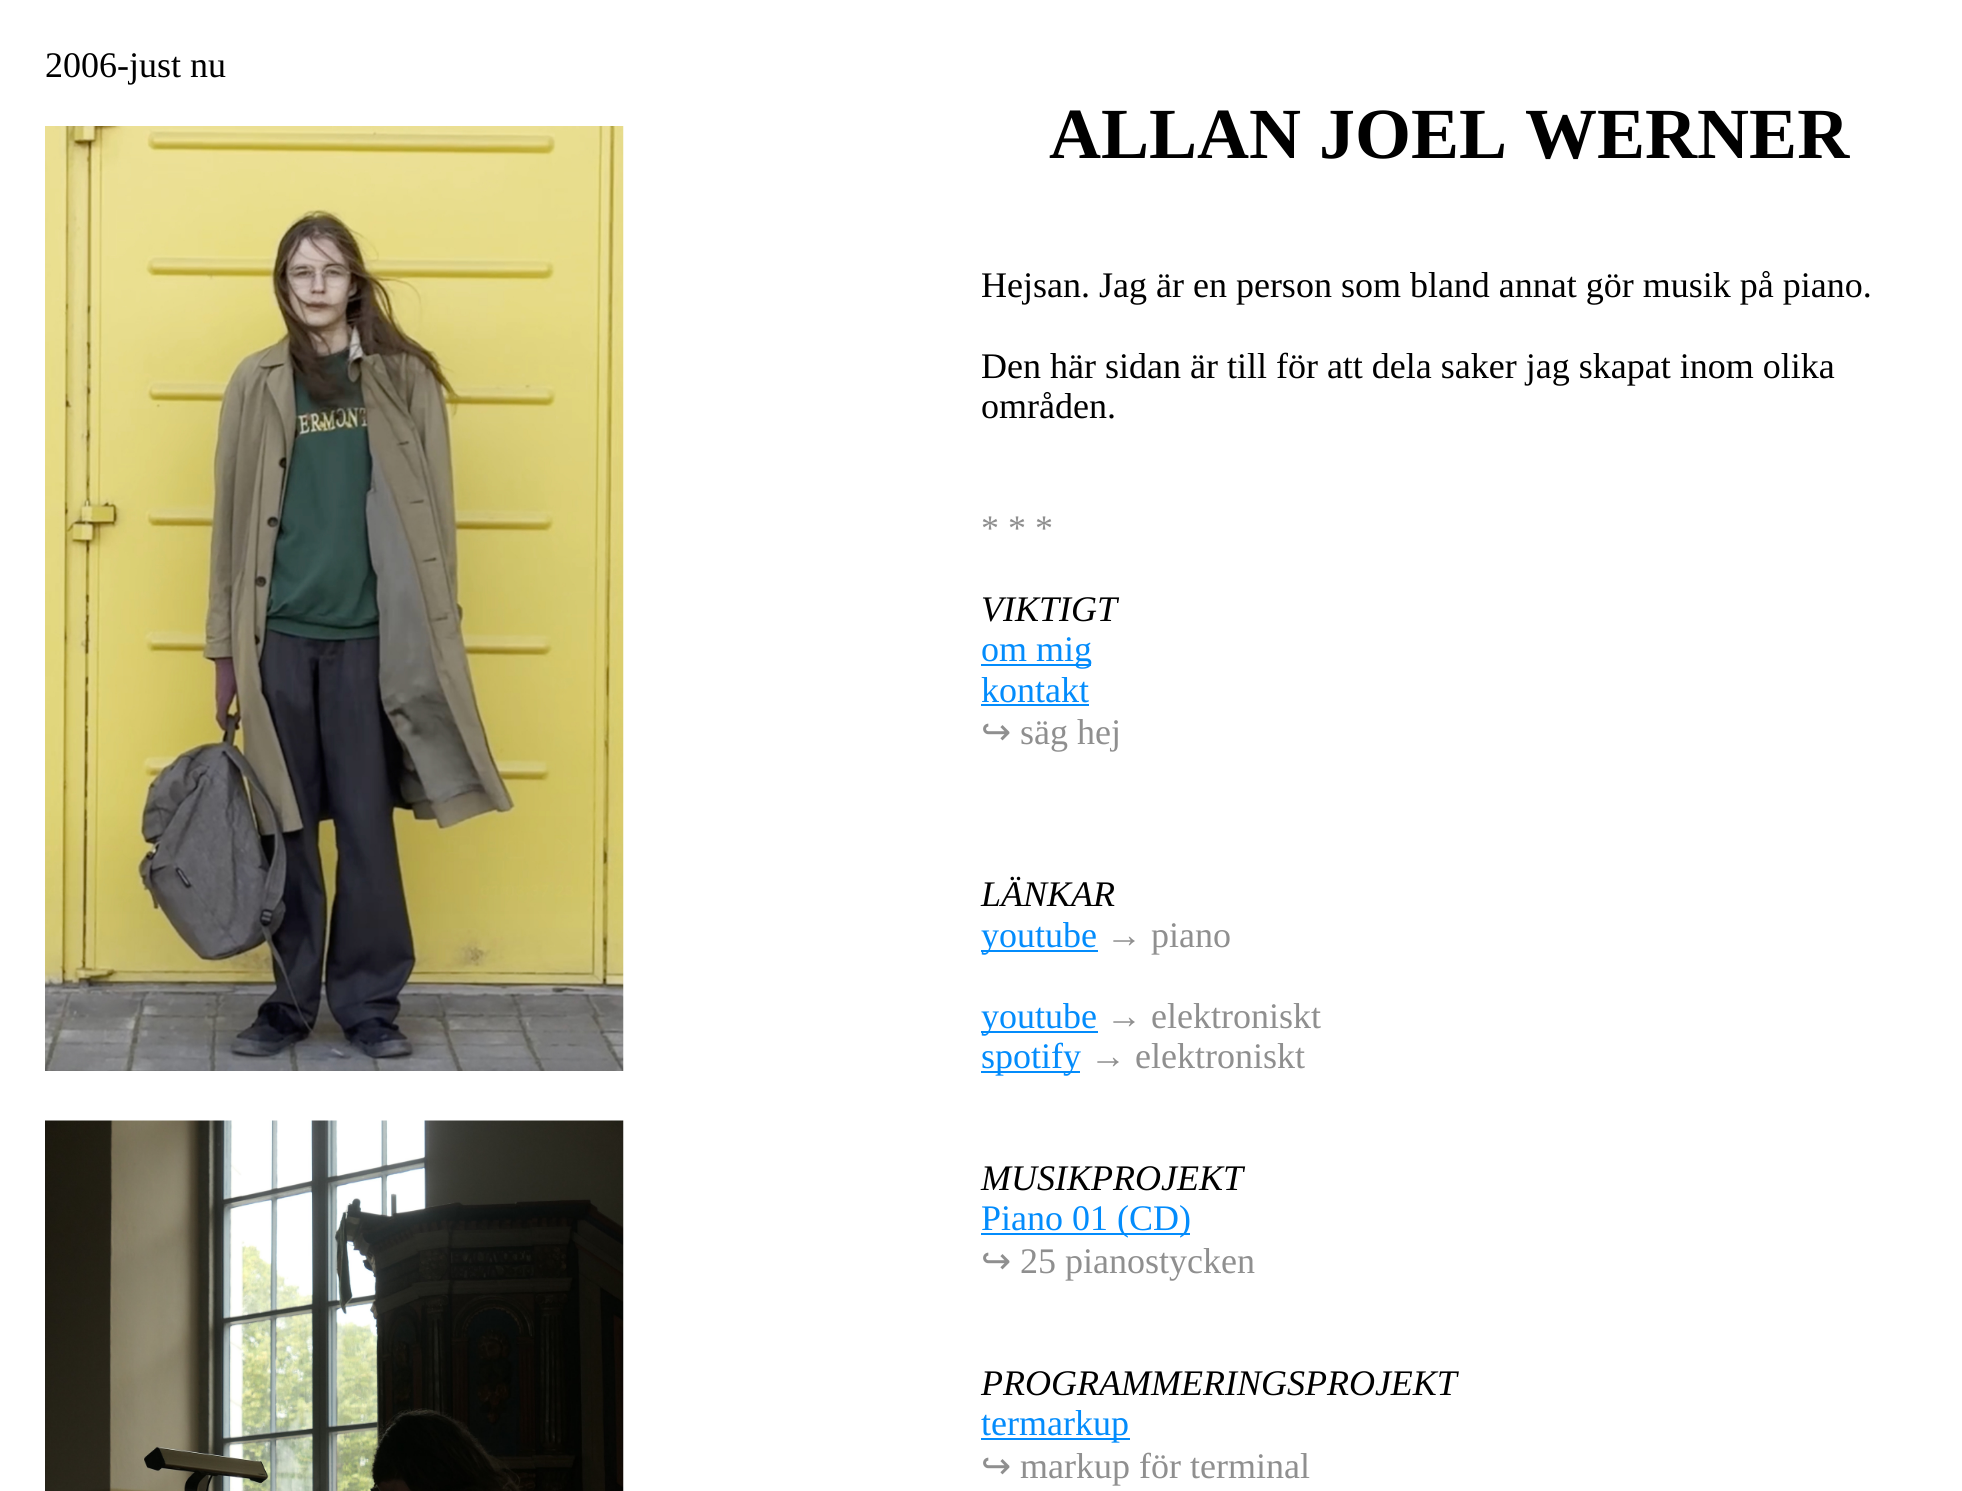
import math
import cairo

surface = cairo.ImageSurface(cairo.FORMAT_RGB24, 1962, 1491)
ctx = cairo.Context(surface)
options = cairo.FontOptions()
options.set_hint_metrics(cairo.HINT_METRICS_OFF)
options.set_hint_style(cairo.HINT_STYLE_NONE)
ctx.set_font_options(options)
ctx.set_miter_limit(4)


def set_color(code):
    ctx.set_source_rgb(*(v / 255 for v in bytes.fromhex(code[-6:])))


def draw_text(x, y, s, family, size, color, bold=False, italic=False):
    ctx.select_font_face(family, cairo.FONT_SLANT_ITALIC if italic else cairo.FONT_SLANT_NORMAL, cairo.FONT_WEIGHT_BOLD if bold else cairo.FONT_WEIGHT_NORMAL)
    ctx.set_font_size(size)
    set_color(color)
    ctx.move_to(x, y)
    ctx.show_text(s)


def fill_rect(x, y, w, h, color):
    set_color(color)
    ctx.rectangle(x, y, w, h)
    ctx.fill()


def draw_image(path, x, y, w, h):
    ctx.save()
    ctx.set_source_surface(cairo.ImageSurface.create_from_png(path), x, y)
    ctx.rectangle(x, y, w, h)
    ctx.fill()
    ctx.restore()


set_color("#ffffff")
ctx.paint()
draw_text(45, 77, "2006-just nu", "Liberation Serif", 36, "#000000")
draw_image("assets/img1.png", 45, 126, 579, 945)
draw_image("assets/img2.png", 45, 1120, 579, 371)
draw_text(1049, 158, "ALLAN JOEL WERNER", "Liberation Serif", 72, "#000000", bold=True)
draw_text(981, 297, "Hejsan. Jag är en person som bland annat gör musik på piano.", "Liberation Serif", 36, "#000000")
draw_text(981, 378, "Den här sidan är till för att dela saker jag skapat inom olika", "Liberation Serif", 36, "#000000")
draw_text(981, 418, "områden.", "Liberation Serif", 36, "#000000")
draw_text(981, 540, "* * *", "Liberation Serif", 36, "#8f8f8f")
draw_text(981, 621, "VIKTIGT", "Liberation Serif", 36, "#000000", italic=True)
fill_rect(981, 664, 110, 2, "#038cfc")
draw_text(981, 661, "om mig", "Liberation Serif", 36, "#038cfc")
draw_text(981, 702, "kontakt", "Liberation Serif", 36, "#038cfc")
fill_rect(981, 704, 108, 2, "#038cfc")
draw_text(981, 744, "↪", "DejaVu Sans", 36, "#8f8f8f")
draw_text(1020, 744, "säg hej", "Liberation Serif", 36, "#8f8f8f")
draw_text(981, 906, "LÄNKAR", "Liberation Serif", 36, "#000000", italic=True)
fill_rect(981, 950, 117, 2, "#038cfc")
draw_text(981, 947, "youtube", "Liberation Serif", 36, "#038cfc")
draw_text(1106, 947, "→ piano", "Liberation Serif", 36, "#8f8f8f")
fill_rect(981, 1031, 117, 2, "#038cfc")
draw_text(981, 1028, "youtube", "Liberation Serif", 36, "#038cfc")
draw_text(1106, 1028, "→ elektroniskt", "Liberation Serif", 36, "#8f8f8f")
fill_rect(981, 1071, 99, 2, "#038cfc")
draw_text(981, 1068, "spotify", "Liberation Serif", 36, "#038cfc")
draw_text(1090, 1068, "→ elektroniskt", "Liberation Serif", 36, "#8f8f8f")
draw_text(981, 1190, "MUSIKPROJEKT", "Liberation Serif", 36, "#000000", italic=True)
fill_rect(981, 1233, 209, 2, "#038cfc")
draw_text(981, 1230, "Piano 01 (CD)", "Liberation Serif", 36, "#038cfc")
draw_text(981, 1273, "↪", "DejaVu Sans", 36, "#8f8f8f")
draw_text(1020, 1273, "25 pianostycken", "Liberation Serif", 36, "#8f8f8f")
draw_text(981, 1395, "PROGRAMMERINGSPROJEKT", "Liberation Serif", 36, "#000000", italic=True)
fill_rect(981, 1438, 149, 2, "#038cfc")
draw_text(981, 1435, "termarkup", "Liberation Serif", 36, "#038cfc")
draw_text(981, 1478, "↪", "DejaVu Sans", 36, "#8f8f8f")
draw_text(1020, 1478, "markup för terminal", "Liberation Serif", 36, "#8f8f8f")
surface.write_to_png("output.png")
